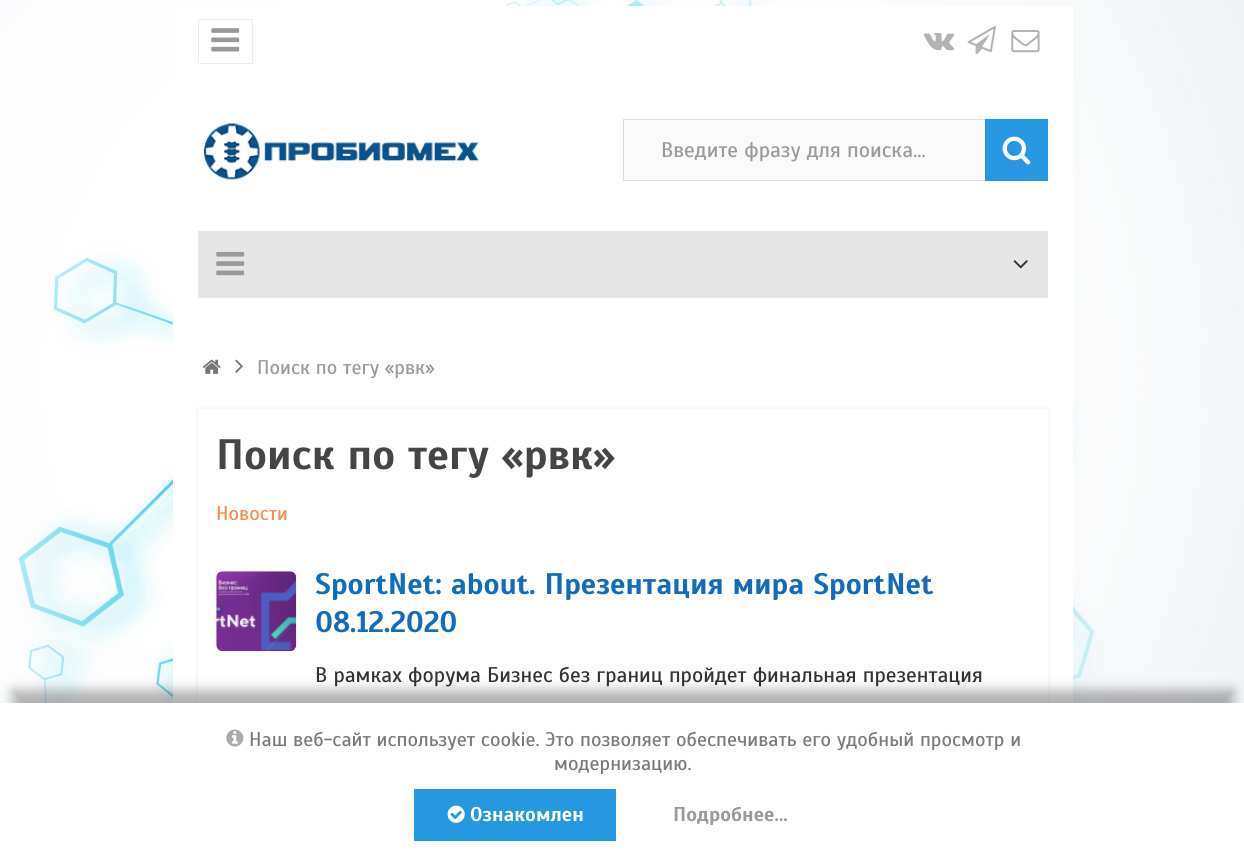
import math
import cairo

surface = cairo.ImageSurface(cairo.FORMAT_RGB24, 1244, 853)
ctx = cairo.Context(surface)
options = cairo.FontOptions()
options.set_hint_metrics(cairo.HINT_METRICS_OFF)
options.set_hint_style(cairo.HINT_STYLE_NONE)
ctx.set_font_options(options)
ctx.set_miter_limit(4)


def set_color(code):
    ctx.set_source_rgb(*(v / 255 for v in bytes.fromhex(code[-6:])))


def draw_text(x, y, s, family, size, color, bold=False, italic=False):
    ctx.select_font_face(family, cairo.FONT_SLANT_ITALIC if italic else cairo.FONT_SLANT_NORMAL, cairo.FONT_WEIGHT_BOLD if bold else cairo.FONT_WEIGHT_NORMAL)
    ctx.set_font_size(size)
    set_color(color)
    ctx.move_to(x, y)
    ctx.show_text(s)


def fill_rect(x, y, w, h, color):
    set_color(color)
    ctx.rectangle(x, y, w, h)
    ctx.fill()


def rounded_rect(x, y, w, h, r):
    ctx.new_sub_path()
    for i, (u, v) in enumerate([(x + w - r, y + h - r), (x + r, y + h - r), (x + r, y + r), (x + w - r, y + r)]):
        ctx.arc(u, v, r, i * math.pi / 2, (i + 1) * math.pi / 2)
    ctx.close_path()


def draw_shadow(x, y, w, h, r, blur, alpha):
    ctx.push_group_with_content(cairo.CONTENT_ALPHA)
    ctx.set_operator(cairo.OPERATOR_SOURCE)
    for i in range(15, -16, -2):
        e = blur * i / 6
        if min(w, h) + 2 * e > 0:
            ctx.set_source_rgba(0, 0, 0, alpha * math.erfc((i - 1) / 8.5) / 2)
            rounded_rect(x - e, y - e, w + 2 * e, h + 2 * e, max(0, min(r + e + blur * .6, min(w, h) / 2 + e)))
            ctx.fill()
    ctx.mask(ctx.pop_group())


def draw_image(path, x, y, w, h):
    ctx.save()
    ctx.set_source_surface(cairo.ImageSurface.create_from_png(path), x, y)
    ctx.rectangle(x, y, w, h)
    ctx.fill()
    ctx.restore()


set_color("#ffffff")
ctx.paint()
draw_image("assets/img1.png", 0, 0, 1244, 703)
fill_rect(173, 6, 900, 697, "#ffffff")
ctx.rectangle(198.5, 19.5, 54, 44)
set_color("#ededed")
ctx.set_line_width(1)
ctx.stroke()
draw_image("assets/img2.png", 211, 28, 29, 24)
draw_image("assets/img3.png", 923, 32, 31, 19)
draw_image("assets/img4.png", 967, 26, 29, 29)
draw_image("assets/img5.png", 1011, 30, 29, 23)
draw_image("assets/img6.png", 203, 123, 276, 57)
fill_rect(624, 120, 361, 60, "#fafafa")
ctx.rectangle(623.5, 119.5, 424, 61)
set_color("#dddddd")
ctx.stroke()
draw_text(661, 157, "Введите фразу для поиска...", "Scada", 21.25, "#9a9a9a")
fill_rect(985, 119, 63, 62, "#2897e1")
draw_image("assets/img7.png", 1002, 136, 29, 29)
fill_rect(198, 231, 850, 67, "#e6e6e6")
draw_image("assets/img8.png", 216, 251, 29, 25)
draw_image("assets/img9.png", 1013, 260, 15, 9)
draw_image("assets/img10.png", 202, 359, 19, 15)
draw_image("assets/img11.png", 235, 359, 8, 14)
draw_text(257, 374, "Поиск по тегу «рвк»", "Scada", 19.85, "#9a9a9a")
set_color("#000000")
draw_shadow(198, 409, 850, 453, 0, 3, 0.07)
fill_rect(198, 409, 850, 294, "#ffffff")
draw_text(216, 469, "Поиск по тегу «рвк»", "Scada", 42.5, "#454545", bold=True)
draw_text(216, 520, "Новости", "Scada", 19.85, "#f28d4f")
draw_image("assets/img12.png", 216, 571, 81, 81)
draw_text(315, 594, "SportNet: about. Презентация мира SportNet", "Scada", 29.75, "#136bb9", bold=True)
draw_text(315, 632, "08.12.2020", "Scada", 29.75, "#136bb9", bold=True)
draw_text(315, 682, "В рамках форума Бизнес без границ пройдет финальная презентация", "Scada", 21.25, "#333333")
set_color("#000000")
draw_shadow(13, 690, 1220, 126, 0, 6, 0.3)
fill_rect(2, 703, 1242, 150, "#ffffff")
draw_image("assets/img13.png", 226, 729, 18, 18)
draw_text(249, 746, "Наш веб-сайт использует cookie. Это позволяет обеспечивать его удобный просмотр и", "Scada", 19.85, "#7a7a7a")
draw_text(554, 770, "модернизацию.", "Scada", 19.85, "#7a7a7a")
fill_rect(414, 789, 202, 52, "#2897e1")
draw_image("assets/img14.png", 447, 805, 18, 18)
draw_text(470, 821, "Ознакомлен", "Scada", 20, "#ffffff", bold=True)
draw_text(673, 821, "Подробнее...", "Scada", 20, "#9a9a9a", bold=True)
surface.write_to_png("output.png")
